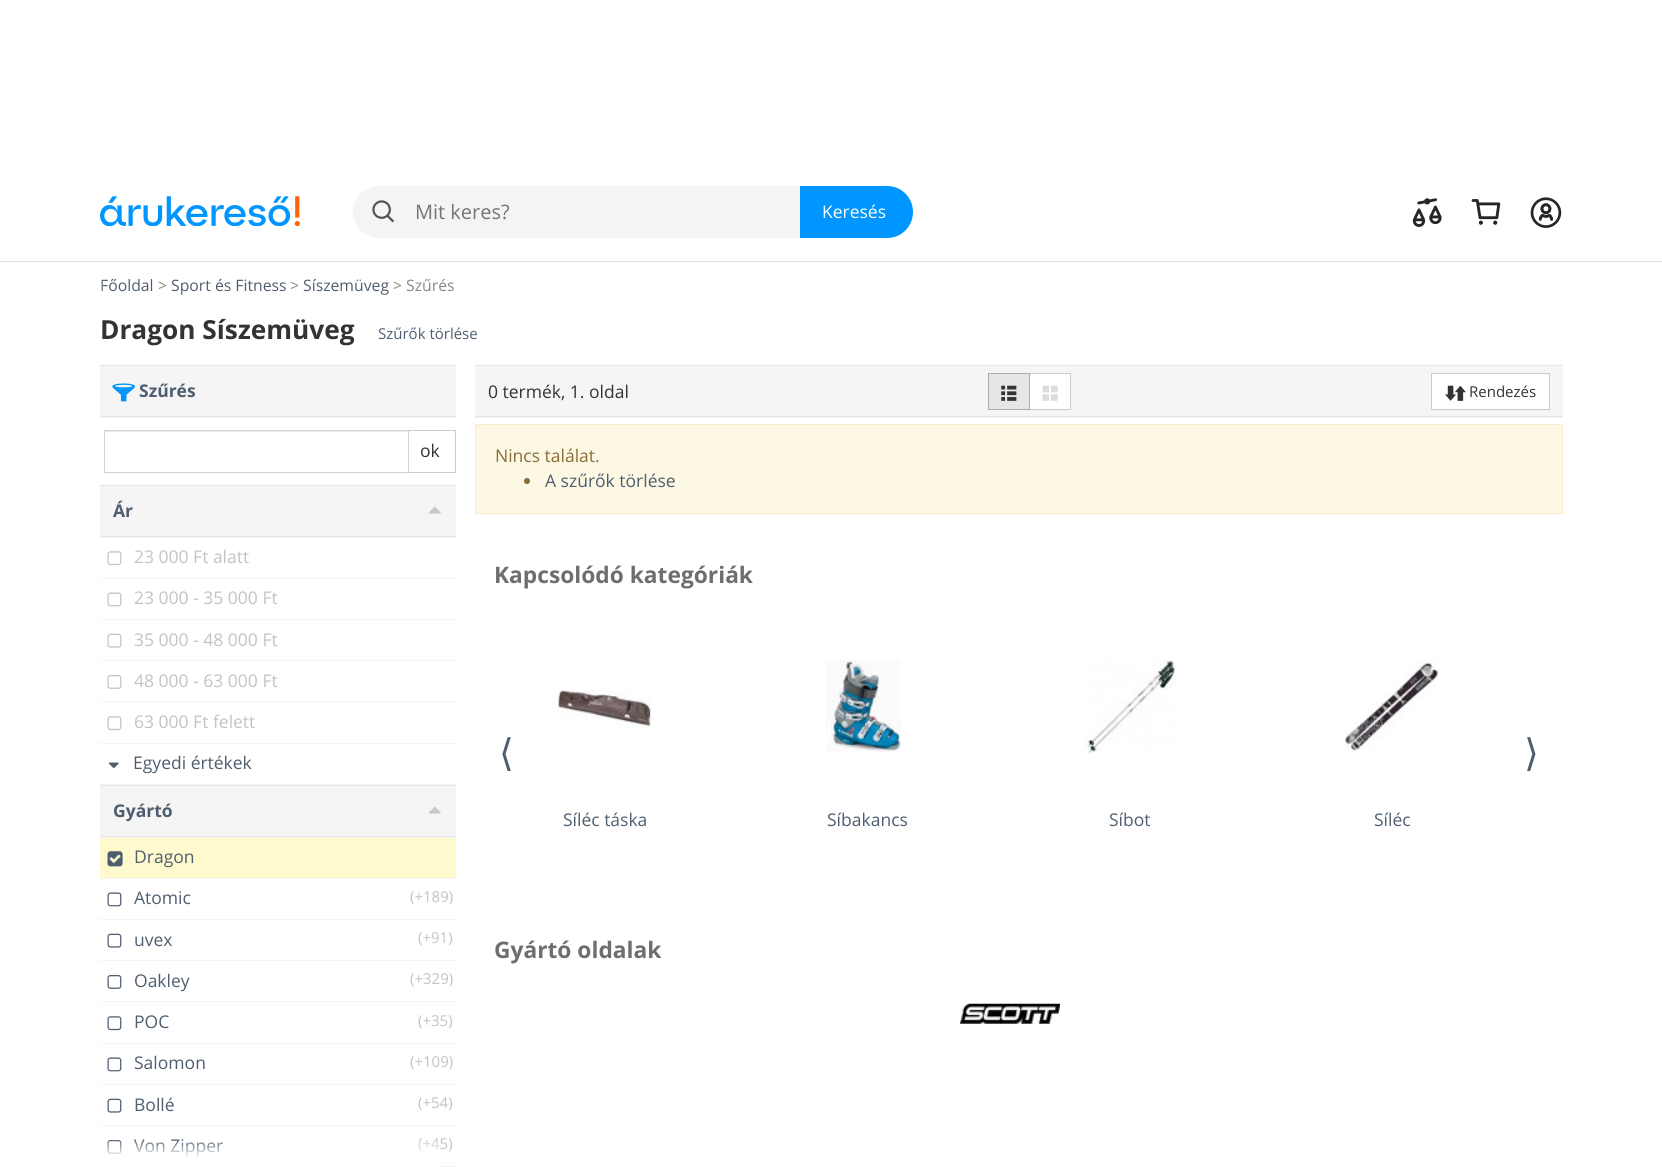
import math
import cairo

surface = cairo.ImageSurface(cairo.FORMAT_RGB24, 1662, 1175)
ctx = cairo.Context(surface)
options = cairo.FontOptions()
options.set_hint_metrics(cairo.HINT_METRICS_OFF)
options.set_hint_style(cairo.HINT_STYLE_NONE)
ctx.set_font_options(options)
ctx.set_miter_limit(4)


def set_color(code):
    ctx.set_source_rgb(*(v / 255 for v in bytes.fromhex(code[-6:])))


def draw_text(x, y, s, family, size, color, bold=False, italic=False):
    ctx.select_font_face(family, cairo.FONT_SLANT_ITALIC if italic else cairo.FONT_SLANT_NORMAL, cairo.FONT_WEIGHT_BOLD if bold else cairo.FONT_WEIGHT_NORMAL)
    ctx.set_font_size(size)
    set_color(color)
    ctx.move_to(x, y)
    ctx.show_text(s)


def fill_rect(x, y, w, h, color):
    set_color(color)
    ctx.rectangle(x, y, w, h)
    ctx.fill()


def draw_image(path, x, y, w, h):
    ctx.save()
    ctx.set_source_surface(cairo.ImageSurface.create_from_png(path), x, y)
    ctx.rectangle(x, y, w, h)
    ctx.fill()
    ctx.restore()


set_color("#ffffff")
ctx.paint()
fill_rect(0, 261, 1662, 1, "#e0e0e0")
draw_image("assets/img1.png", 100, 196, 200, 30)
set_color("#f4f4f4")
ctx.new_path()
ctx.move_to(379, 186)
ctx.line_to(800, 186)
ctx.line_to(800, 238)
ctx.line_to(379, 238)
ctx.curve_to(364.5, 238, 353, 226.5, 353, 212)
ctx.curve_to(353, 197.5, 364.5, 186, 379, 186)
ctx.close_path()
ctx.fill()
draw_image("assets/img2.png", 372, 200, 22, 23)
draw_text(415, 219, "Mit keres?", "Open Sans", 20, "#757575")
set_color("#0096ff")
ctx.new_path()
ctx.move_to(800, 186)
ctx.line_to(887, 186)
ctx.curve_to(901.5, 186, 913, 197.5, 913, 212)
ctx.curve_to(913, 226.5, 901.5, 238, 887, 238)
ctx.line_to(800, 238)
ctx.close_path()
ctx.fill()
draw_text(822, 218, "Keresés", "Open Sans", 17.5, "#ffffff")
draw_image("assets/img3.png", 1412, 198, 30, 29)
draw_image("assets/img4.png", 1471, 199, 30, 26)
draw_image("assets/img5.png", 1530, 197, 32, 31)
draw_text(100, 291, "Főoldal", "Open Sans", 15.75, "#4f5e6f")
draw_text(158, 291, ">", "Open Sans", 15.75, "#888888")
draw_text(171, 291, "Sport és Fitness", "Open Sans", 15.75, "#4f5e6f")
draw_text(290, 291, ">", "Open Sans", 15.75, "#888888")
draw_text(303, 291, "Síszemüveg", "Open Sans", 15.75, "#4f5e6f")
draw_text(393, 291, "> Szűrés", "Open Sans", 15.75, "#888888")
gradient = cairo.LinearGradient(81, 289, 104, 289)
gradient.add_color_stop_rgba(0.3, 1, 1, 1, 1)
gradient.add_color_stop_rgba(1, 1, 1, 1, 0)
ctx.set_source(gradient)
ctx.rectangle(101, 279, 3, 12)
ctx.fill()
draw_text(100, 339, "Dragon Síszemüveg", "Open Sans", 26.25, "#333333", bold=True)
draw_text(378, 339, "Szűrők törlése", "Open Sans", 15, "#4f5e6f")
fill_rect(100, 366, 356, 52, "#f5f5f5")
fill_rect(100, 365, 356, 1, "#e6e6e6")
fill_rect(100, 416, 356, 1, "#e6e6e6")
draw_image("assets/img6.png", 112, 383, 23, 19)
draw_text(139, 397, "Szűrés", "Open Sans", 17.5, "#4f5e6f", bold=True)
ctx.rectangle(404.5, 430.5, 51, 42)
set_color("#cccccc")
ctx.set_line_width(1)
ctx.stroke()
fill_rect(404, 432, 1, 40, "#ffffff")
fill_rect(105, 431, 303, 1, "#ececec")
ctx.rectangle(104.5, 430.5, 304, 42)
set_color("#d1d1d1")
ctx.stroke()
draw_text(420, 457, "ok", "Open Sans", 17.5, "#333333")
fill_rect(100, 486, 356, 52, "#f5f5f5")
fill_rect(100, 485, 356, 1, "#e6e6e6")
fill_rect(100, 536, 356, 1, "#e6e6e6")
draw_text(113, 517, "Ár", "Open Sans", 17.5, "#4f5e6f", bold=True)
draw_image("assets/img7.png", 428, 507, 13, 7)
fill_rect(100, 578, 356, 1, "#f5f5f5")
draw_image("assets/img8.png", 107, 551, 15, 15)
draw_text(134, 563, "23 000 Ft alatt", "Open Sans", 17.5, "#c3c3c3")
fill_rect(100, 619, 356, 1, "#f5f5f5")
draw_image("assets/img9.png", 107, 592, 15, 15)
draw_text(134, 604, "23 000 - 35 000 Ft", "Open Sans", 17.5, "#c3c3c3")
fill_rect(100, 660, 356, 1, "#f5f5f5")
draw_image("assets/img10.png", 107, 633, 15, 15)
draw_text(134, 646, "35 000 - 48 000 Ft", "Open Sans", 17.5, "#c3c3c3")
fill_rect(100, 701, 356, 1, "#f5f5f5")
draw_image("assets/img11.png", 107, 675, 15, 14)
draw_text(134, 687, "48 000 - 63 000 Ft", "Open Sans", 17.5, "#c3c3c3")
fill_rect(100, 743, 356, 1, "#f5f5f5")
draw_image("assets/img8.png", 107, 716, 15, 15)
draw_text(134, 728, "63 000 Ft felett", "Open Sans", 17.5, "#c3c3c3")
fill_rect(100, 784, 356, 1, "#f5f5f5")
draw_image("assets/img12.png", 108, 762, 11, 7)
draw_text(133, 769, "Egyedi értékek", "Open Sans", 17.5, "#4f5e6f")
fill_rect(100, 786, 356, 52, "#f5f5f5")
fill_rect(100, 785, 356, 1, "#e6e6e6")
fill_rect(100, 836, 356, 1, "#e6e6e6")
draw_text(113, 817, "Gyártó", "Open Sans", 17.5, "#4f5e6f", bold=True)
draw_image("assets/img7.png", 428, 807, 13, 7)
fill_rect(100, 878, 356, 1, "#f5f5f5")
fill_rect(100, 838, 356, 40, "#fffacd")
draw_image("assets/img13.png", 107, 851, 16, 16)
draw_text(134, 863, "Dragon", "Open Sans", 17.5, "#4f5e6f")
fill_rect(100, 919, 356, 1, "#f5f5f5")
draw_image("assets/img14.png", 107, 892, 15, 15)
draw_text(134, 904, "Atomic", "Open Sans", 17.5, "#4f5e6f")
draw_text(410, 902, "(+189)", "Open Sans", 15, "#c3c3c3")
fill_rect(100, 960, 356, 1, "#f5f5f5")
draw_image("assets/img15.png", 107, 933, 15, 15)
draw_text(134, 946, "uvex", "Open Sans", 17.5, "#4f5e6f")
draw_text(418, 943, "(+91)", "Open Sans", 15, "#c3c3c3")
fill_rect(100, 1001, 356, 1, "#f5f5f5")
draw_image("assets/img16.png", 107, 975, 15, 14)
draw_text(134, 987, "Oakley", "Open Sans", 17.5, "#4f5e6f")
draw_text(410, 984, "(+329)", "Open Sans", 15, "#c3c3c3")
fill_rect(100, 1043, 356, 1, "#f5f5f5")
draw_image("assets/img17.png", 107, 1016, 15, 15)
draw_text(134, 1028, "POC", "Open Sans", 17.5, "#4f5e6f")
draw_text(418, 1026, "(+35)", "Open Sans", 15, "#c3c3c3")
fill_rect(100, 1084, 356, 1, "#f5f5f5")
draw_image("assets/img14.png", 107, 1057, 15, 15)
draw_text(134, 1069, "Salomon", "Open Sans", 17.5, "#4f5e6f")
draw_text(410, 1067, "(+109)", "Open Sans", 15, "#c3c3c3")
fill_rect(100, 1125, 356, 1, "#f5f5f5")
draw_image("assets/img15.png", 107, 1098, 15, 15)
draw_text(134, 1111, "Bollé", "Open Sans", 17.5, "#4f5e6f")
draw_text(418, 1108, "(+54)", "Open Sans", 15, "#c3c3c3")
fill_rect(100, 1166, 356, 1, "#f5f5f5")
draw_image("assets/img16.png", 107, 1140, 15, 14)
draw_text(134, 1152, "Von Zipper", "Open Sans", 17.5, "#4f5e6f")
draw_text(418, 1149, "(+45)", "Open Sans", 15, "#c3c3c3")
gradient = cairo.LinearGradient(269, 1139, 269, 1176)
gradient.add_color_stop_rgba(0, 1, 1, 1, 0)
gradient.add_color_stop_rgba(0.44, 1, 1, 1, 0.85)
gradient.add_color_stop_rgba(1, 1, 1, 1, 1)
ctx.set_source(gradient)
ctx.rectangle(100, 1139, 339, 28)
ctx.fill()
fill_rect(475, 366, 1088, 52, "#f5f5f5")
fill_rect(475, 365, 1088, 1, "#e6e6e6")
fill_rect(475, 416, 1088, 1, "#e6e6e6")
draw_text(488, 398, "0 termék, 1. oldal", "Open Sans", 17.5, "#333333")
set_color("#ffffff")
ctx.rectangle(1029.5, 373.5, 41, 36)
ctx.fill_preserve()
set_color("#cccccc")
ctx.stroke()
set_color("#e6e6e6")
ctx.rectangle(988.5, 373.5, 41, 36)
ctx.fill_preserve()
set_color("#adadad")
ctx.stroke()
draw_image("assets/img18.png", 1001, 385, 16, 16)
draw_image("assets/img19.png", 1042, 385, 16, 16)
set_color("#ffffff")
ctx.rectangle(1431.5, 373.5, 118, 36)
ctx.fill_preserve()
set_color("#cccccc")
ctx.stroke()
draw_image("assets/img20.png", 1445, 385, 21, 16)
draw_text(1469, 397, "Rendezés", "Open Sans", 15, "#333333")
set_color("#fcf8e3")
ctx.rectangle(475.5, 424.5, 1087, 89)
ctx.fill_preserve()
set_color("#faebcc")
ctx.stroke()
draw_text(495, 462, "Nincs találat.", "Open Sans", 17.5, "#8a6d3b")
ctx.new_path()
ctx.arc(527, 481, 3, 0, 2 * math.pi)
ctx.fill()
draw_text(545, 487, "A szűrők törlése", "Open Sans", 17.5, "#4f5e6f")
draw_text(494, 583, "Kapcsolódó kategóriák", "Open Sans", 22.75, "#6e6e6e", bold=True)
draw_text(499, 766, "⟨", "DejaVu Sans", 38, "#4f5e6f")
draw_text(1524, 766, "⟩", "DejaVu Sans", 38, "#4f5e6f")
draw_image("assets/img21.png", 557, 690, 94, 40)
draw_text(563, 826, "Síléc táska", "Open Sans", 17.5, "#4f5e6f")
draw_image("assets/img22.png", 826, 660, 75, 93)
draw_text(827, 826, "Síbakancs", "Open Sans", 17.5, "#4f5e6f")
draw_image("assets/img23.png", 1084, 660, 92, 94)
draw_text(1109, 826, "Síbot", "Open Sans", 17.5, "#4f5e6f")
draw_image("assets/img24.png", 1345, 660, 94, 91)
draw_text(1374, 826, "Síléc", "Open Sans", 17.5, "#4f5e6f")
draw_text(494, 958, "Gyártó oldalak", "Open Sans", 22.75, "#6e6e6e", bold=True)
draw_image("assets/img25.png", 960, 1003, 100, 21)
surface.write_to_png("output.png")
